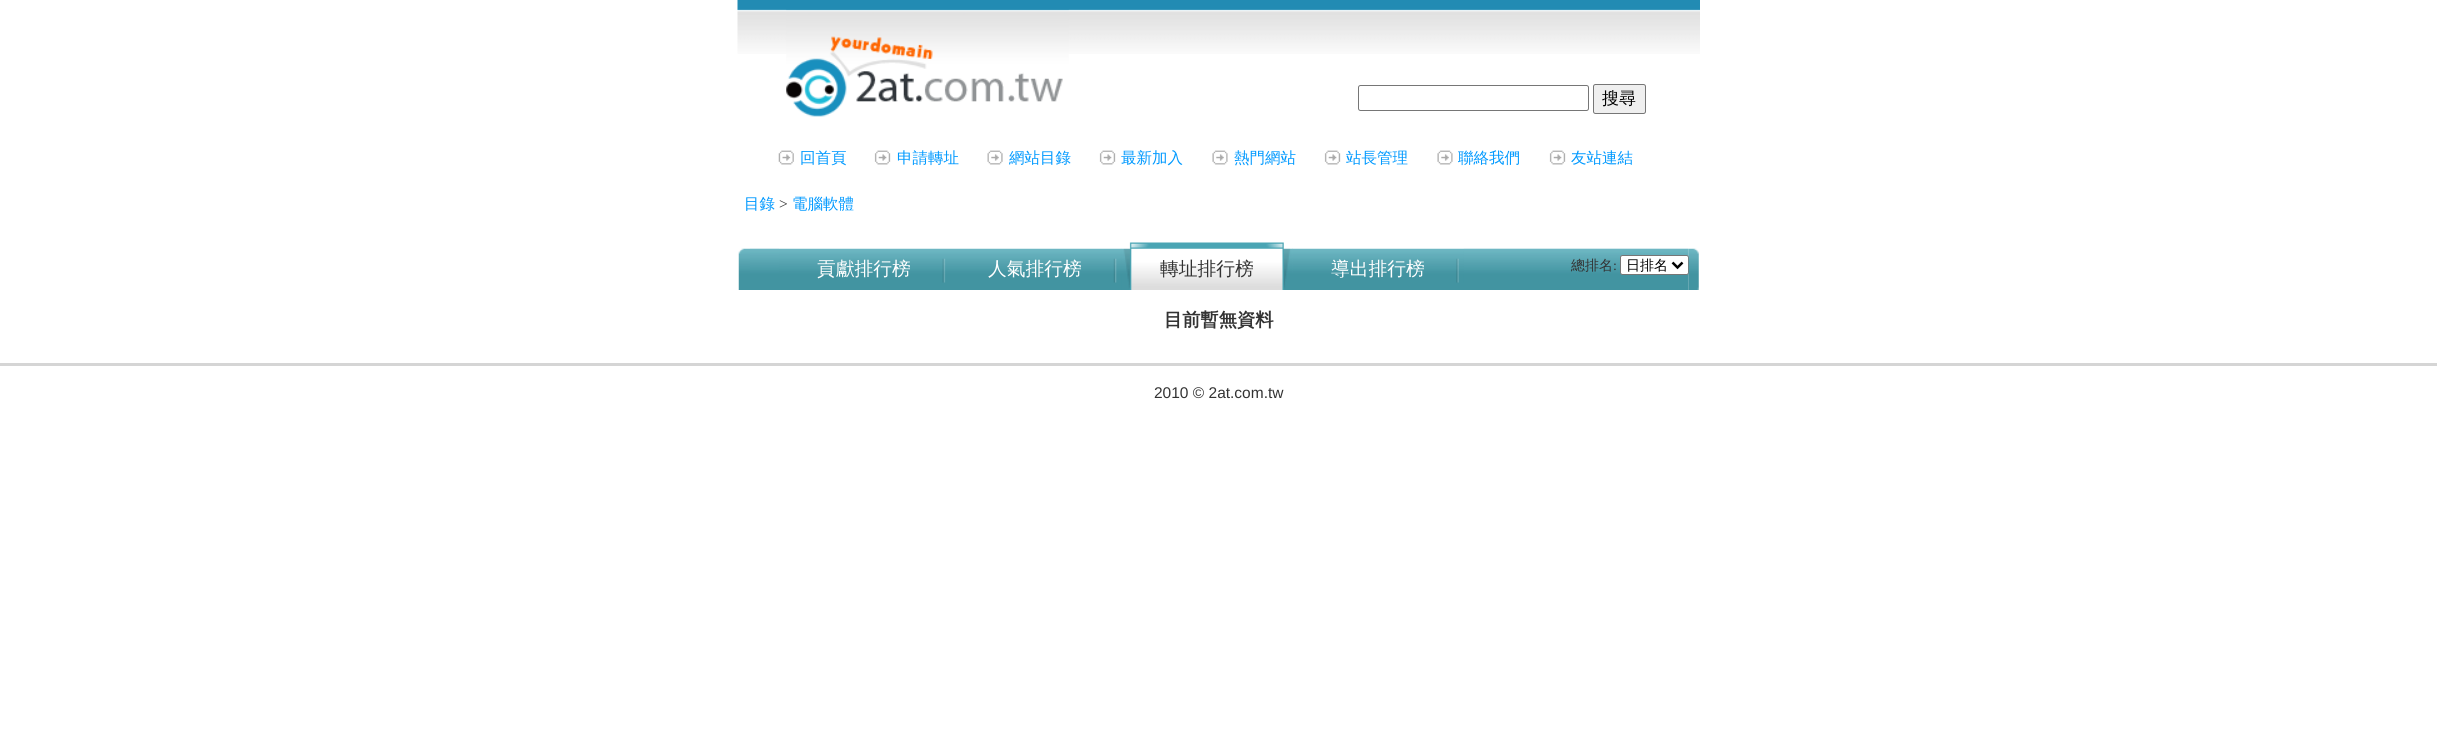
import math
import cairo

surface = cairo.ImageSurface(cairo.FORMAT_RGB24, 2437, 750)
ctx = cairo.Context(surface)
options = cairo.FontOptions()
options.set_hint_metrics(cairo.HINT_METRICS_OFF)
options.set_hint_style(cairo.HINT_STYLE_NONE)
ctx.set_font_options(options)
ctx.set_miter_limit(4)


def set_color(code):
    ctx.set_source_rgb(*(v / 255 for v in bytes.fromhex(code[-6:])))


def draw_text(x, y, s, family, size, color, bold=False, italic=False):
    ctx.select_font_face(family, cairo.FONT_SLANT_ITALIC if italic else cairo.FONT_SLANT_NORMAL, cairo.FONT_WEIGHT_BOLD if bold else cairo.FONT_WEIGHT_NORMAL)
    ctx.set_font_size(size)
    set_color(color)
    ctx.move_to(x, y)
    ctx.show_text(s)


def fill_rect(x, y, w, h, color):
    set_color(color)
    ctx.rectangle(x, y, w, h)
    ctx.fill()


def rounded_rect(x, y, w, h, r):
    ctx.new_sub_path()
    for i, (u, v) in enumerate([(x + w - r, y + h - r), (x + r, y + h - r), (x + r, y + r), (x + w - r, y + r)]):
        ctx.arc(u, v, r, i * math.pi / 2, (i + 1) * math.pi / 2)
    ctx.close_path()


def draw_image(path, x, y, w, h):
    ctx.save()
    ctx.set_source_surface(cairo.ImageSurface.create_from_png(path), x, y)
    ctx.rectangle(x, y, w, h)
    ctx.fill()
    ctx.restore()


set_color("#ffffff")
ctx.paint()
draw_image("assets/img1.png", 737, 0, 963, 54)
draw_image("assets/img2.png", 786, 9, 283, 108)
rounded_rect(1358.5, 85.5, 230, 25, 2)
set_color("#767676")
ctx.set_line_width(1)
ctx.stroke()
set_color("#efefef")
rounded_rect(1593.5, 84.5, 52, 29, 2)
ctx.fill_preserve()
set_color("#767676")
ctx.stroke()
draw_text(1602, 104, "搜尋", "WenQuanYi Zen Hei Medium", 17, "#000000")
draw_image("assets/img3.png", 778, 150, 16, 15)
draw_text(800, 163, "回首頁", "WenQuanYi Zen Hei Medium", 15.5, "#0099ff")
draw_image("assets/img4.png", 874, 150, 17, 15)
draw_text(897, 163, "申請轉址", "WenQuanYi Zen Hei Medium", 15.5, "#0099ff")
draw_image("assets/img5.png", 987, 150, 16, 15)
draw_text(1009, 163, "網站目錄", "WenQuanYi Zen Hei Medium", 15.5, "#0099ff")
draw_image("assets/img4.png", 1099, 150, 17, 15)
draw_text(1121, 163, "最新加入", "WenQuanYi Zen Hei Medium", 15.5, "#0099ff")
draw_image("assets/img6.png", 1212, 150, 16, 15)
draw_text(1234, 163, "熱門網站", "WenQuanYi Zen Hei Medium", 15.5, "#0099ff")
draw_image("assets/img4.png", 1324, 150, 17, 15)
draw_text(1346, 163, "站長管理", "WenQuanYi Zen Hei Medium", 15.5, "#0099ff")
draw_image("assets/img6.png", 1437, 150, 16, 15)
draw_text(1458, 163, "聯絡我們", "WenQuanYi Zen Hei Medium", 15.5, "#0099ff")
draw_image("assets/img4.png", 1549, 150, 17, 15)
draw_text(1571, 163, "友站連結", "WenQuanYi Zen Hei Medium", 15.5, "#0099ff")
draw_text(744, 209, "目錄", "WenQuanYi Zen Hei Medium", 15.5, "#0099ff")
draw_text(779, 209, ">", "Liberation Serif", 15.5, "#333333")
draw_text(792, 209, "電腦軟體", "WenQuanYi Zen Hei Medium", 15.5, "#0099ff")
draw_image("assets/img7.png", 738, 248, 12, 42)
draw_image("assets/img8.png", 750, 248, 939, 42)
draw_image("assets/img9.png", 779, 248, 171, 35)
draw_text(817, 275, "貢獻排行榜", "WenQuanYi Zen Hei Medium", 18.75, "#ffffff")
draw_image("assets/img10.png", 950, 248, 171, 35)
draw_text(988, 275, "人氣排行榜", "WenQuanYi Zen Hei Medium", 18.75, "#ffffff")
draw_image("assets/img11.png", 1121, 242, 171, 48)
draw_text(1160, 275, "轉址排行榜", "WenQuanYi Zen Hei Medium", 18.75, "#333333")
draw_image("assets/img12.png", 1293, 248, 171, 35)
draw_text(1331, 275, "導出排行榜", "WenQuanYi Zen Hei Medium", 18.75, "#ffffff")
draw_text(1571, 270, "總排名", "WenQuanYi Zen Hei Medium", 14, "#333333")
draw_text(1613, 270, ":", "Liberation Serif", 14, "#333333")
set_color("#ffffff")
rounded_rect(1620.5, 255.5, 68, 19, 2)
ctx.fill_preserve()
set_color("#767676")
ctx.stroke()
ctx.new_path()
ctx.move_to(1672.5, 262.5)
ctx.line_to(1677.5, 267.5)
ctx.line_to(1682.5, 262.5)
set_color("#000000")
ctx.set_line_width(2.5)
ctx.stroke()
draw_text(1626, 270, "日排名", "WenQuanYi Zen Hei Medium", 14, "#000000")
draw_image("assets/img13.png", 1688, 248, 11, 42)
draw_text(1164, 326, "目前暫無資料", "WenQuanYi Zen Hei", 18.25, "#333333", bold=True)
fill_rect(0, 363, 2437, 3, "#d5d5d5")
draw_text(1154, 398, "2010 © 2at.com.tw", "Liberation Sans", 15.5, "#333333")
surface.write_to_png("output.png")
